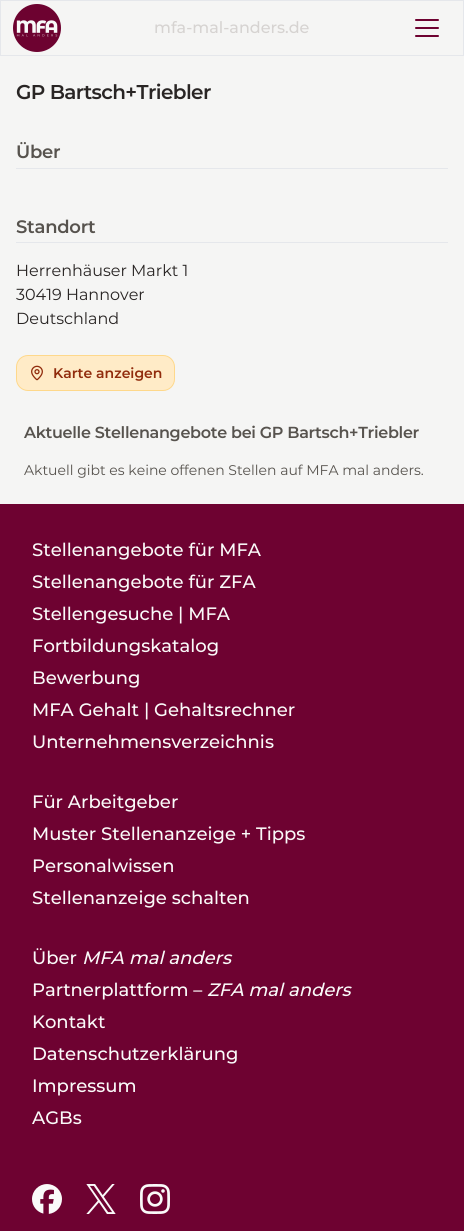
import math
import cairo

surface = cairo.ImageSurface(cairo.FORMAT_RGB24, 464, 1231)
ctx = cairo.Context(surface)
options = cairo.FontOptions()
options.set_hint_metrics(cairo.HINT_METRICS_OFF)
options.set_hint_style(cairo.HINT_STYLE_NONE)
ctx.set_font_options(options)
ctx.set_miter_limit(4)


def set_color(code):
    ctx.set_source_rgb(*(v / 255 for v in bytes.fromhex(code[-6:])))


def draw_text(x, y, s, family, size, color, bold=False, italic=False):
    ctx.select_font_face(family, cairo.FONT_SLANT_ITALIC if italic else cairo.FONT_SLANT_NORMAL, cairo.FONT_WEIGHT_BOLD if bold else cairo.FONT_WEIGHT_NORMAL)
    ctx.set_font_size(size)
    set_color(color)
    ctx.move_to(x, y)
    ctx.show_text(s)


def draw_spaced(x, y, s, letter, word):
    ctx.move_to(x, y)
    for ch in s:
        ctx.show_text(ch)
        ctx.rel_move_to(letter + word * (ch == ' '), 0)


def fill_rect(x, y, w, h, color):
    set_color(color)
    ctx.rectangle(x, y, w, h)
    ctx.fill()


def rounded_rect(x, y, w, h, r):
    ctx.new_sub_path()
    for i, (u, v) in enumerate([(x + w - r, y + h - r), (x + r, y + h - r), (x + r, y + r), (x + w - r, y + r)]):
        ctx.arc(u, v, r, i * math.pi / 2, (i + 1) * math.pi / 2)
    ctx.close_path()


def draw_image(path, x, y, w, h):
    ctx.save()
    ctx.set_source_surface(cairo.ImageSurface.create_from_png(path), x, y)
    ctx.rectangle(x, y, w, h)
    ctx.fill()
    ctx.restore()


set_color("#f5f5f4")
ctx.paint()
ctx.rectangle(0.5, 0.5, 463, 55)
set_color("#e5e7eb")
ctx.set_line_width(1)
ctx.stroke()
draw_image("assets/img1.png", 13, 4, 48, 48)
draw_text(154, 33, "mfa-mal-anders.de", "Montserrat Medium", 16, "#d6d3d1")
set_color("#6e0231")
rounded_rect(415, 19, 24, 2, 1)
ctx.fill()
rounded_rect(415, 27, 24, 2, 1)
ctx.fill()
rounded_rect(415, 35, 24, 2, 1)
ctx.fill()
ctx.select_font_face("Montserrat SemiBold")
ctx.set_font_size(20)
set_color("#292524")
draw_spaced(16, 99, "GP Bartsch+Triebler", -0.6, 0)
fill_rect(16, 168, 432, 1, "#e5e7eb")
ctx.set_font_size(18)
set_color("#57534e")
draw_spaced(16, 158, "Über", -0.25, 0)
fill_rect(16, 242, 432, 1, "#e5e7eb")
set_color("#57534e")
draw_spaced(16, 233, "Standort", -0.25, 0)
draw_text(16, 276, "Herrenhäuser Markt 1", "Montserrat", 16, "#292524")
draw_text(16, 300, "30419 Hannover", "Montserrat", 16, "#292524")
draw_text(16, 324, "Deutschland", "Montserrat", 16, "#292524")
set_color("#ffebc7")
rounded_rect(16.5, 355.5, 158, 35, 11.5)
ctx.fill_preserve()
set_color("#fed88b")
ctx.stroke()
draw_image("assets/img2.png", 31, 365, 12, 16)
draw_text(53, 378, "Karte anzeigen", "Montserrat SemiBold", 14, "#912c0d")
ctx.set_font_size(16)
set_color("#57534e")
draw_spaced(24, 438, "Aktuelle Stellenangebote bei GP Bartsch+Triebler", -0.3, 0)
draw_text(24, 475, "Aktuell gibt es keine offenen Stellen auf MFA mal anders.", "Montserrat", 14, "#57534e")
fill_rect(0, 504, 464, 727, "#6e0231")
draw_text(32, 556, "Stellenangebote für MFA", "Montserrat Medium", 18, "#fafaf9")
draw_text(32, 588, "Stellenangebote für ZFA", "Montserrat Medium", 18, "#fafaf9")
draw_text(32, 620, "Stellengesuche | MFA", "Montserrat Medium", 18, "#fafaf9")
draw_text(32, 652, "Fortbildungskatalog", "Montserrat Medium", 18, "#fafaf9")
draw_text(32, 684, "Bewerbung", "Montserrat Medium", 18, "#fafaf9")
draw_text(32, 716, "MFA Gehalt | Gehaltsrechner", "Montserrat Medium", 18, "#fafaf9")
draw_text(32, 748, "Unternehmensverzeichnis", "Montserrat Medium", 18, "#fafaf9")
draw_text(32, 808, "Für Arbeitgeber", "Montserrat Medium", 18, "#fafaf9")
draw_text(32, 840, "Muster Stellenanzeige + Tipps", "Montserrat Medium", 18, "#fafaf9")
draw_text(32, 872, "Personalwissen", "Montserrat Medium", 18, "#fafaf9")
draw_text(32, 904, "Stellenanzeige schalten", "Montserrat Medium", 18, "#fafaf9")
draw_text(32, 964, "Über", "Montserrat Medium", 18, "#fafaf9")
draw_text(82, 964, "MFA mal anders", "Montserrat Medium", 18, "#fafaf9", italic=True)
draw_text(32, 996, "Partnerplattform –", "Montserrat Medium", 18, "#fafaf9")
draw_text(207, 996, "ZFA mal anders", "Montserrat Medium", 18, "#fafaf9", italic=True)
draw_text(32, 1028, "Kontakt", "Montserrat Medium", 18, "#fafaf9")
draw_text(32, 1060, "Datenschutzerklärung", "Montserrat Medium", 18, "#fafaf9")
draw_text(32, 1092, "Impressum", "Montserrat Medium", 18, "#fafaf9")
draw_text(32, 1124, "AGBs", "Montserrat Medium", 18, "#fafaf9")
draw_image("assets/img3.png", 32, 1184, 30, 30)
draw_image("assets/img4.png", 86, 1184, 30, 30)
draw_image("assets/img5.png", 140, 1184, 30, 30)
surface.write_to_png("output.png")
